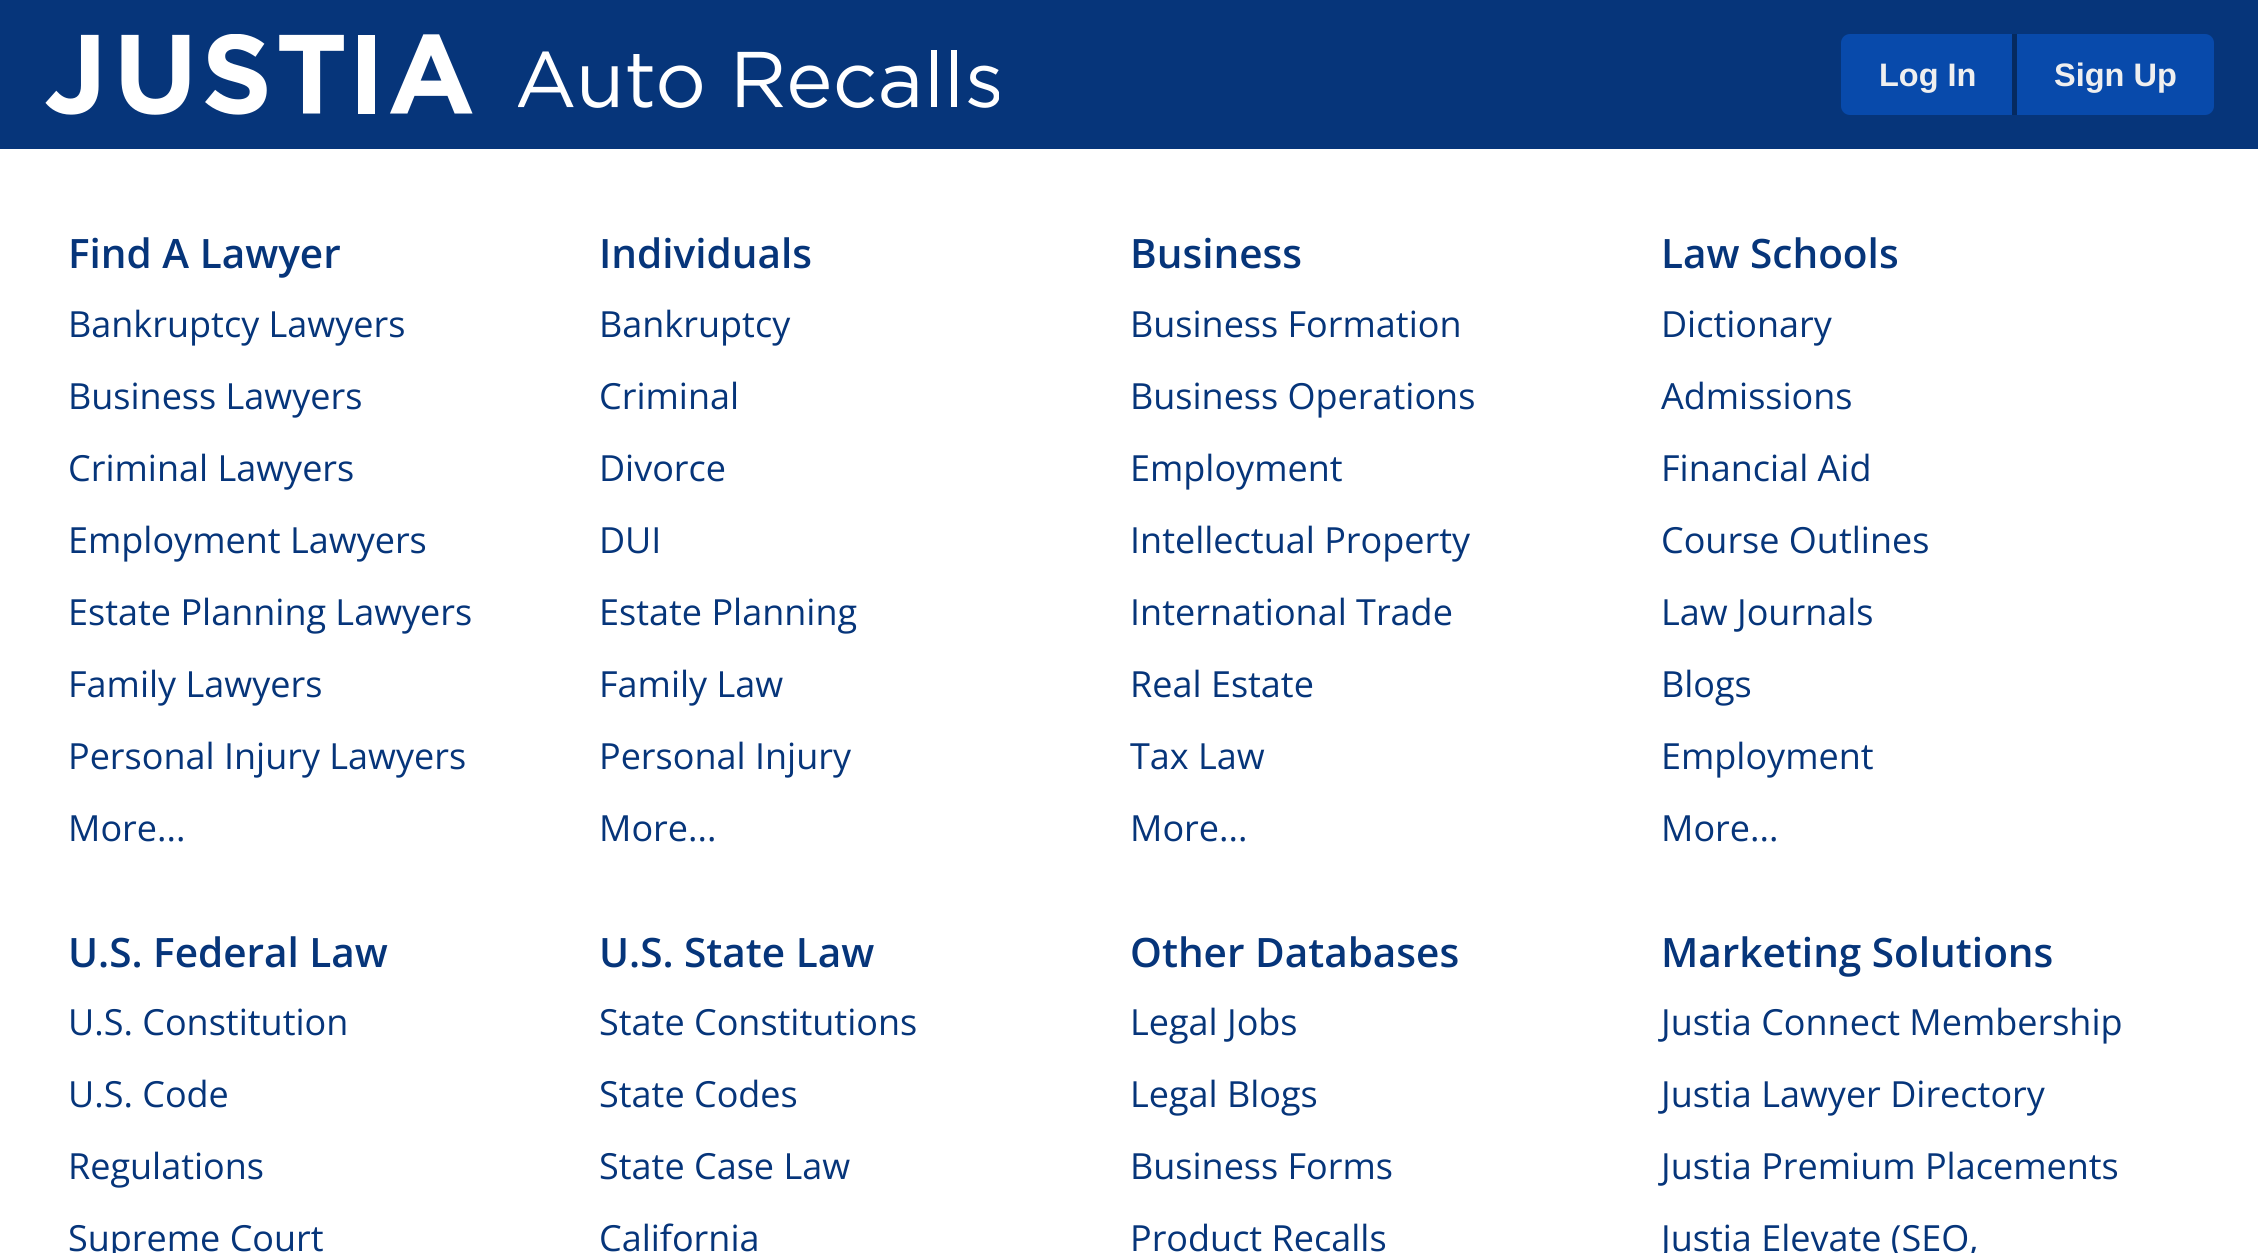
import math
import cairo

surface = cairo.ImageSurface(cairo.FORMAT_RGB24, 2258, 1253)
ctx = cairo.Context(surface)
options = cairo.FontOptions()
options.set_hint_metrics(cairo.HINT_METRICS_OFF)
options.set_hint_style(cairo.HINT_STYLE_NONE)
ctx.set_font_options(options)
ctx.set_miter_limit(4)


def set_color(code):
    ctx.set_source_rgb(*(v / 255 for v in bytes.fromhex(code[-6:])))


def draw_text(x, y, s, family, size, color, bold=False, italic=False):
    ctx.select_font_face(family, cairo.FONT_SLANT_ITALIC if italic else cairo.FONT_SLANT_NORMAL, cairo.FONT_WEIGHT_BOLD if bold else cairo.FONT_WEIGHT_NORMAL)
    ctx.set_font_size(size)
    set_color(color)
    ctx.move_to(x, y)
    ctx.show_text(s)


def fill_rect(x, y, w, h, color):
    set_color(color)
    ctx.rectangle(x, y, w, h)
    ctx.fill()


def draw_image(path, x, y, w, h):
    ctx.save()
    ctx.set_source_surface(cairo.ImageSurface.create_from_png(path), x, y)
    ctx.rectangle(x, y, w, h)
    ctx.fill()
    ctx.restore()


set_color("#ffffff")
ctx.paint()
fill_rect(0, 0, 2258, 149, "#06357a")
draw_image("assets/img1.png", 45, 34, 428, 81)
draw_image("assets/img2.png", 518, 50, 481, 58)
set_color("#084aab")
ctx.new_path()
ctx.move_to(1850, 34)
ctx.line_to(2012, 34)
ctx.line_to(2012, 115)
ctx.line_to(1850, 115)
ctx.curve_to(1845, 115, 1841, 111, 1841, 106)
ctx.line_to(1841, 43)
ctx.curve_to(1841, 38, 1845, 34, 1850, 34)
ctx.close_path()
ctx.fill()
draw_text(1879, 86, "Log In", "Liberation Sans", 32.5, "#efefef", bold=True)
set_color("#084aab")
ctx.new_path()
ctx.move_to(2012, 34)
ctx.line_to(2205, 34)
ctx.curve_to(2210, 34, 2214, 38, 2214, 43)
ctx.line_to(2214, 106)
ctx.curve_to(2214, 111, 2210, 115, 2205, 115)
ctx.line_to(2012, 115)
ctx.close_path()
ctx.fill()
fill_rect(2012, 34, 5, 81, "#052a60")
draw_text(2054, 86, "Sign Up", "Liberation Sans", 32.5, "#efefef", bold=True)
draw_text(68, 268, "Find A Lawyer", "Open Sans SemiBold", 40.5, "#06357a")
draw_text(68, 337, "Bankruptcy Lawyers", "Open Sans", 36, "#06357a")
draw_text(68, 409, "Business Lawyers", "Open Sans", 36, "#06357a")
draw_text(68, 481, "Criminal Lawyers", "Open Sans", 36, "#06357a")
draw_text(68, 553, "Employment Lawyers", "Open Sans", 36, "#06357a")
draw_text(68, 625, "Estate Planning Lawyers", "Open Sans", 36, "#06357a")
draw_text(68, 697, "Family Lawyers", "Open Sans", 36, "#06357a")
draw_text(68, 769, "Personal Injury Lawyers", "Open Sans", 36, "#06357a")
draw_text(68, 841, "More...", "Open Sans", 36, "#06357a")
draw_text(599, 268, "Individuals", "Open Sans SemiBold", 40.5, "#06357a")
draw_text(599, 337, "Bankruptcy", "Open Sans", 36, "#06357a")
draw_text(599, 409, "Criminal", "Open Sans", 36, "#06357a")
draw_text(599, 481, "Divorce", "Open Sans", 36, "#06357a")
draw_text(599, 553, "DUI", "Open Sans", 36, "#06357a")
draw_text(599, 625, "Estate Planning", "Open Sans", 36, "#06357a")
draw_text(599, 697, "Family Law", "Open Sans", 36, "#06357a")
draw_text(599, 769, "Personal Injury", "Open Sans", 36, "#06357a")
draw_text(599, 841, "More...", "Open Sans", 36, "#06357a")
draw_text(1130, 268, "Business", "Open Sans SemiBold", 40.5, "#06357a")
draw_text(1130, 337, "Business Formation", "Open Sans", 36, "#06357a")
draw_text(1130, 409, "Business Operations", "Open Sans", 36, "#06357a")
draw_text(1130, 481, "Employment", "Open Sans", 36, "#06357a")
draw_text(1130, 553, "Intellectual Property", "Open Sans", 36, "#06357a")
draw_text(1130, 625, "International Trade", "Open Sans", 36, "#06357a")
draw_text(1130, 697, "Real Estate", "Open Sans", 36, "#06357a")
draw_text(1130, 769, "Tax Law", "Open Sans", 36, "#06357a")
draw_text(1130, 841, "More...", "Open Sans", 36, "#06357a")
draw_text(1661, 268, "Law Schools", "Open Sans SemiBold", 40.5, "#06357a")
draw_text(1661, 337, "Dictionary", "Open Sans", 36, "#06357a")
draw_text(1661, 409, "Admissions", "Open Sans", 36, "#06357a")
draw_text(1661, 481, "Financial Aid", "Open Sans", 36, "#06357a")
draw_text(1661, 553, "Course Outlines", "Open Sans", 36, "#06357a")
draw_text(1661, 625, "Law Journals", "Open Sans", 36, "#06357a")
draw_text(1661, 697, "Blogs", "Open Sans", 36, "#06357a")
draw_text(1661, 769, "Employment", "Open Sans", 36, "#06357a")
draw_text(1661, 841, "More...", "Open Sans", 36, "#06357a")
draw_text(68, 967, "U.S. Federal Law", "Open Sans SemiBold", 40.5, "#06357a")
draw_text(68, 1035, "U.S. Constitution", "Open Sans", 36, "#06357a")
draw_text(68, 1107, "U.S. Code", "Open Sans", 36, "#06357a")
draw_text(68, 1179, "Regulations", "Open Sans", 36, "#06357a")
draw_text(68, 1251, "Supreme Court", "Open Sans", 36, "#06357a")
draw_text(599, 967, "U.S. State Law", "Open Sans SemiBold", 40.5, "#06357a")
draw_text(599, 1035, "State Constitutions", "Open Sans", 36, "#06357a")
draw_text(599, 1107, "State Codes", "Open Sans", 36, "#06357a")
draw_text(599, 1179, "State Case Law", "Open Sans", 36, "#06357a")
draw_text(599, 1251, "California", "Open Sans", 36, "#06357a")
draw_text(1130, 967, "Other Databases", "Open Sans SemiBold", 40.5, "#06357a")
draw_text(1130, 1035, "Legal Jobs", "Open Sans", 36, "#06357a")
draw_text(1130, 1107, "Legal Blogs", "Open Sans", 36, "#06357a")
draw_text(1130, 1179, "Business Forms", "Open Sans", 36, "#06357a")
draw_text(1130, 1251, "Product Recalls", "Open Sans", 36, "#06357a")
draw_text(1661, 967, "Marketing Solutions", "Open Sans SemiBold", 40.5, "#06357a")
draw_text(1661, 1035, "Justia Connect Membership", "Open Sans", 36, "#06357a")
draw_text(1661, 1107, "Justia Lawyer Directory", "Open Sans", 36, "#06357a")
draw_text(1661, 1179, "Justia Premium Placements", "Open Sans", 36, "#06357a")
draw_text(1661, 1251, "Justia Elevate (SEO,", "Open Sans", 36, "#06357a")
surface.write_to_png("output.png")
